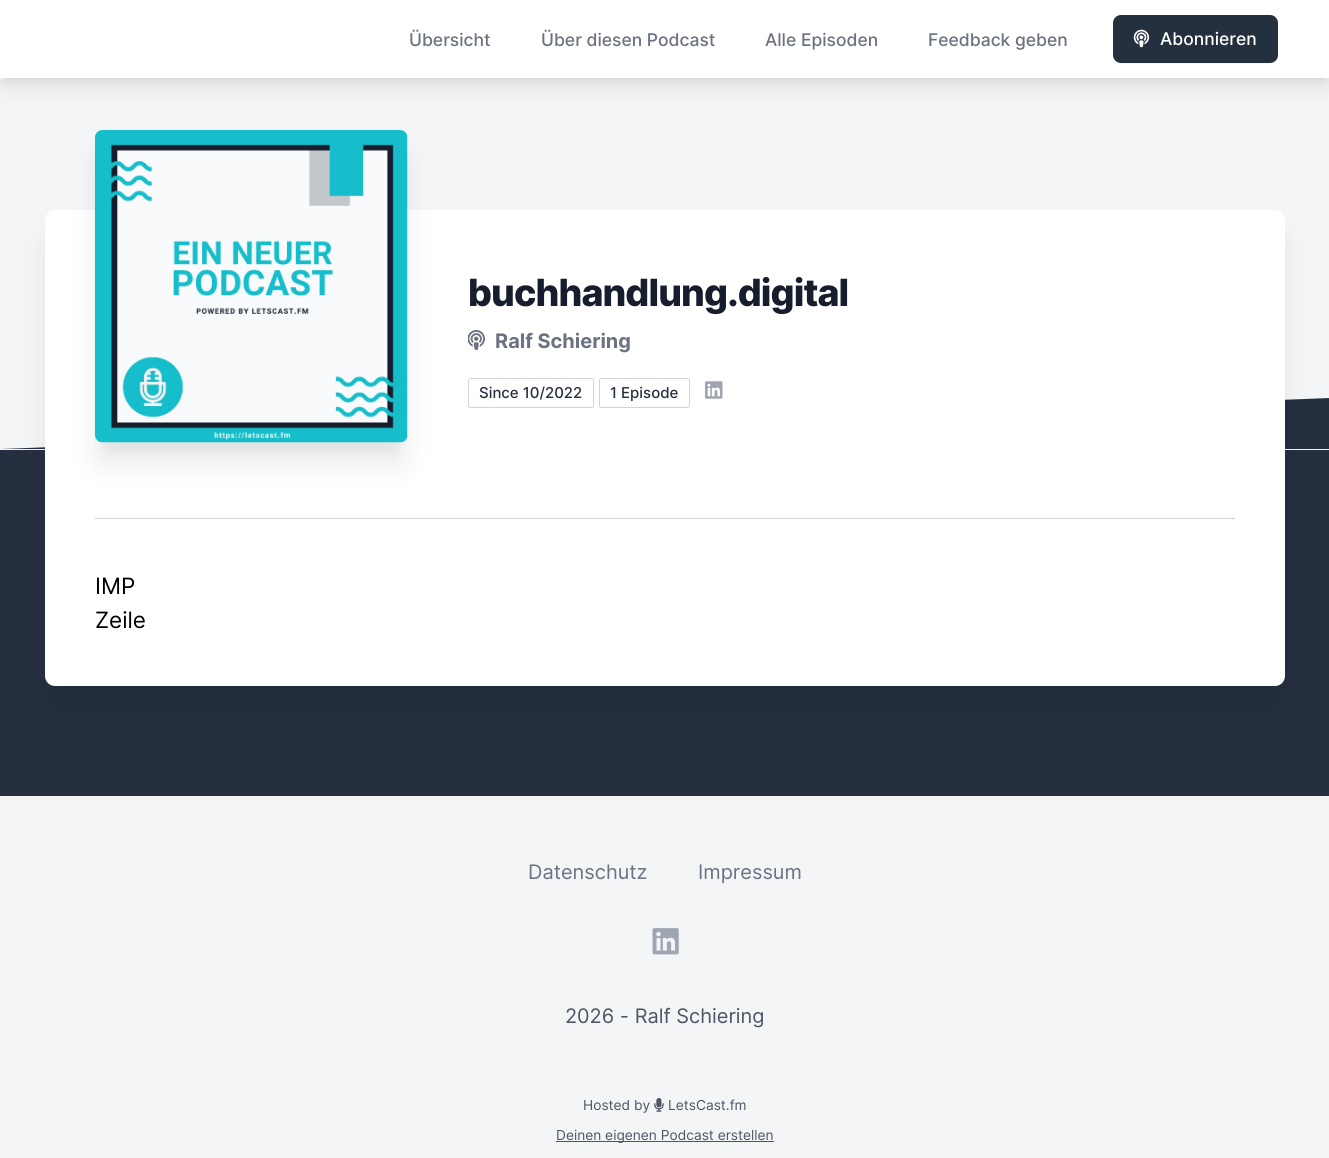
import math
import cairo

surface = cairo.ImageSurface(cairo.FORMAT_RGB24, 1329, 1158)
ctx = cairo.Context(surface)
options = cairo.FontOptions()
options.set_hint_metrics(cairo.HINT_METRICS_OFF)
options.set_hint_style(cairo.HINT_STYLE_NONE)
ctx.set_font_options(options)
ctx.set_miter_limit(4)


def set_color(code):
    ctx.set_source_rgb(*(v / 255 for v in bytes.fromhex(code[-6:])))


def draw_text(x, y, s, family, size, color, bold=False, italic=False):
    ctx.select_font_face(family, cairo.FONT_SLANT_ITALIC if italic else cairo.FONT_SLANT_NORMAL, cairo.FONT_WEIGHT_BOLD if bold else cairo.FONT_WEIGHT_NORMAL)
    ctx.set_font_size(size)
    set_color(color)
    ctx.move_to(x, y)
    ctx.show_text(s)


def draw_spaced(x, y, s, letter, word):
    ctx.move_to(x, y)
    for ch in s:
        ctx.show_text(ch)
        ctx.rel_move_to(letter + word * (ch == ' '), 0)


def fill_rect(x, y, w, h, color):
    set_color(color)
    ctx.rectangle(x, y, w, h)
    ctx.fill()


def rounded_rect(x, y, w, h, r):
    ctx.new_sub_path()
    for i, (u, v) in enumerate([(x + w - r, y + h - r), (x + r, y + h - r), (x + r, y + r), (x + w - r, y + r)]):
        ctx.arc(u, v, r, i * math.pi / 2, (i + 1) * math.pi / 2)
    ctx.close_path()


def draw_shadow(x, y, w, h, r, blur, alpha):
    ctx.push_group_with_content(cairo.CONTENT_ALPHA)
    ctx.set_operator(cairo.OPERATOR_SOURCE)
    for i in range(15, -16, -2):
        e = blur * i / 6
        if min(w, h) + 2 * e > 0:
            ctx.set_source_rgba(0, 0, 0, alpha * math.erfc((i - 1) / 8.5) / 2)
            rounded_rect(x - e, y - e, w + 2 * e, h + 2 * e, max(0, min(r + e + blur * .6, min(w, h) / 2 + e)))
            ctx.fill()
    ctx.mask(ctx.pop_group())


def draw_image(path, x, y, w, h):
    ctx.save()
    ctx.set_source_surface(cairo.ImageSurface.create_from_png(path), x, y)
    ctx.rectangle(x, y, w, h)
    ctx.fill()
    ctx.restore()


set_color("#f4f5f7")
ctx.paint()
set_color("#000000")
draw_shadow(3, 8, 1325, 72, 0, 4, 0.05)
draw_shadow(4, 16, 1322, 70, 0, 9.5, 0.1)
fill_rect(0, 0, 1329, 78, "#ffffff")
draw_text(409, 46, "Übersicht", "Inter Medium", 17.5, "#6b7280")
draw_text(541, 46, "Über diesen Podcast", "Inter Medium", 17.5, "#6b7280")
draw_text(765, 46, "Alle Episoden", "Inter Medium", 17.5, "#6b7280")
draw_text(928, 46, "Feedback geben", "Inter Medium", 17.5, "#6b7280")
set_color("#000000")
draw_shadow(1113, 16, 165, 48, 8, 1, 0.05)
set_color("#25303f")
rounded_rect(1113, 15, 165, 48, 8)
ctx.fill()
draw_image("assets/img1.png", 1133, 29, 17, 19)
draw_text(1160, 45, "Abonnieren", "Inter Medium", 17.5, "#ffffff")
fill_rect(0, 450, 1329, 346, "#252f3f")
ctx.new_path()
ctx.move_to(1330, 398)
ctx.line_to(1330, 449)
ctx.line_to(0, 449)
ctx.close_path()
ctx.fill()
set_color("#000000")
draw_shadow(51, 241, 1228, 464, 4, 15.5, 0.1)
set_color("#ffffff")
rounded_rect(45, 210, 1240, 476, 10)
ctx.fill()
set_color("#000000")
draw_shadow(101, 149, 300, 300, 1, 6, 0.04)
draw_shadow(101, 161, 300, 300, 1, 15.5, 0.1)
draw_image("assets/img2.png", 95, 130, 313, 313)
ctx.select_font_face("Inter ExtraBold")
ctx.set_font_size(37.5)
set_color("#161e2e")
draw_spaced(468, 306, "buchhandlung.digital", -0.9, 0)
draw_image("assets/img3.png", 468, 330, 17, 20)
draw_text(495, 348, "Ralf Schiering", "Inter", 20, "#6b7280", bold=True)
rounded_rect(468.5, 378.5, 125, 29, 2)
set_color("#d2d6dc")
ctx.set_line_width(1)
ctx.stroke()
draw_text(479, 398, "Since 10/2022", "Inter Medium", 15, "#252f3f")
rounded_rect(599.5, 378.5, 90, 29, 2)
set_color("#d2d6dc")
ctx.stroke()
draw_text(610, 398, "1 Episode", "Inter Medium", 15, "#252f3f")
draw_image("assets/img4.png", 705, 381, 18, 18)
fill_rect(95, 518, 1140, 1, "#d2d6dc")
draw_text(95, 594, "IMP", "Inter", 22.5, "#000000")
draw_text(95, 628, "Zeile", "Inter", 22.5, "#000000")
draw_text(528, 879, "Datenschutz", "Inter", 20, "#6b7280")
draw_text(698, 879, "Impressum", "Inter", 20, "#6b7280")
draw_image("assets/img5.png", 652, 928, 27, 27)
draw_text(565, 1023, "2026 - Ralf Schiering", "Inter", 20, "#4b5563")
draw_text(583, 1110, "Hosted by", "Inter", 13.75, "#4b5563")
draw_image("assets/img6.png", 654, 1098, 10, 14)
draw_text(668, 1110, "LetsCast.fm", "Inter", 13.75, "#4b5563")
fill_rect(556, 1141, 218, 1, "#4b5563")
draw_text(556, 1140, "Deinen eigenen Podcast erstellen", "Inter", 13.75, "#4b5563")
surface.write_to_png("output.png")
